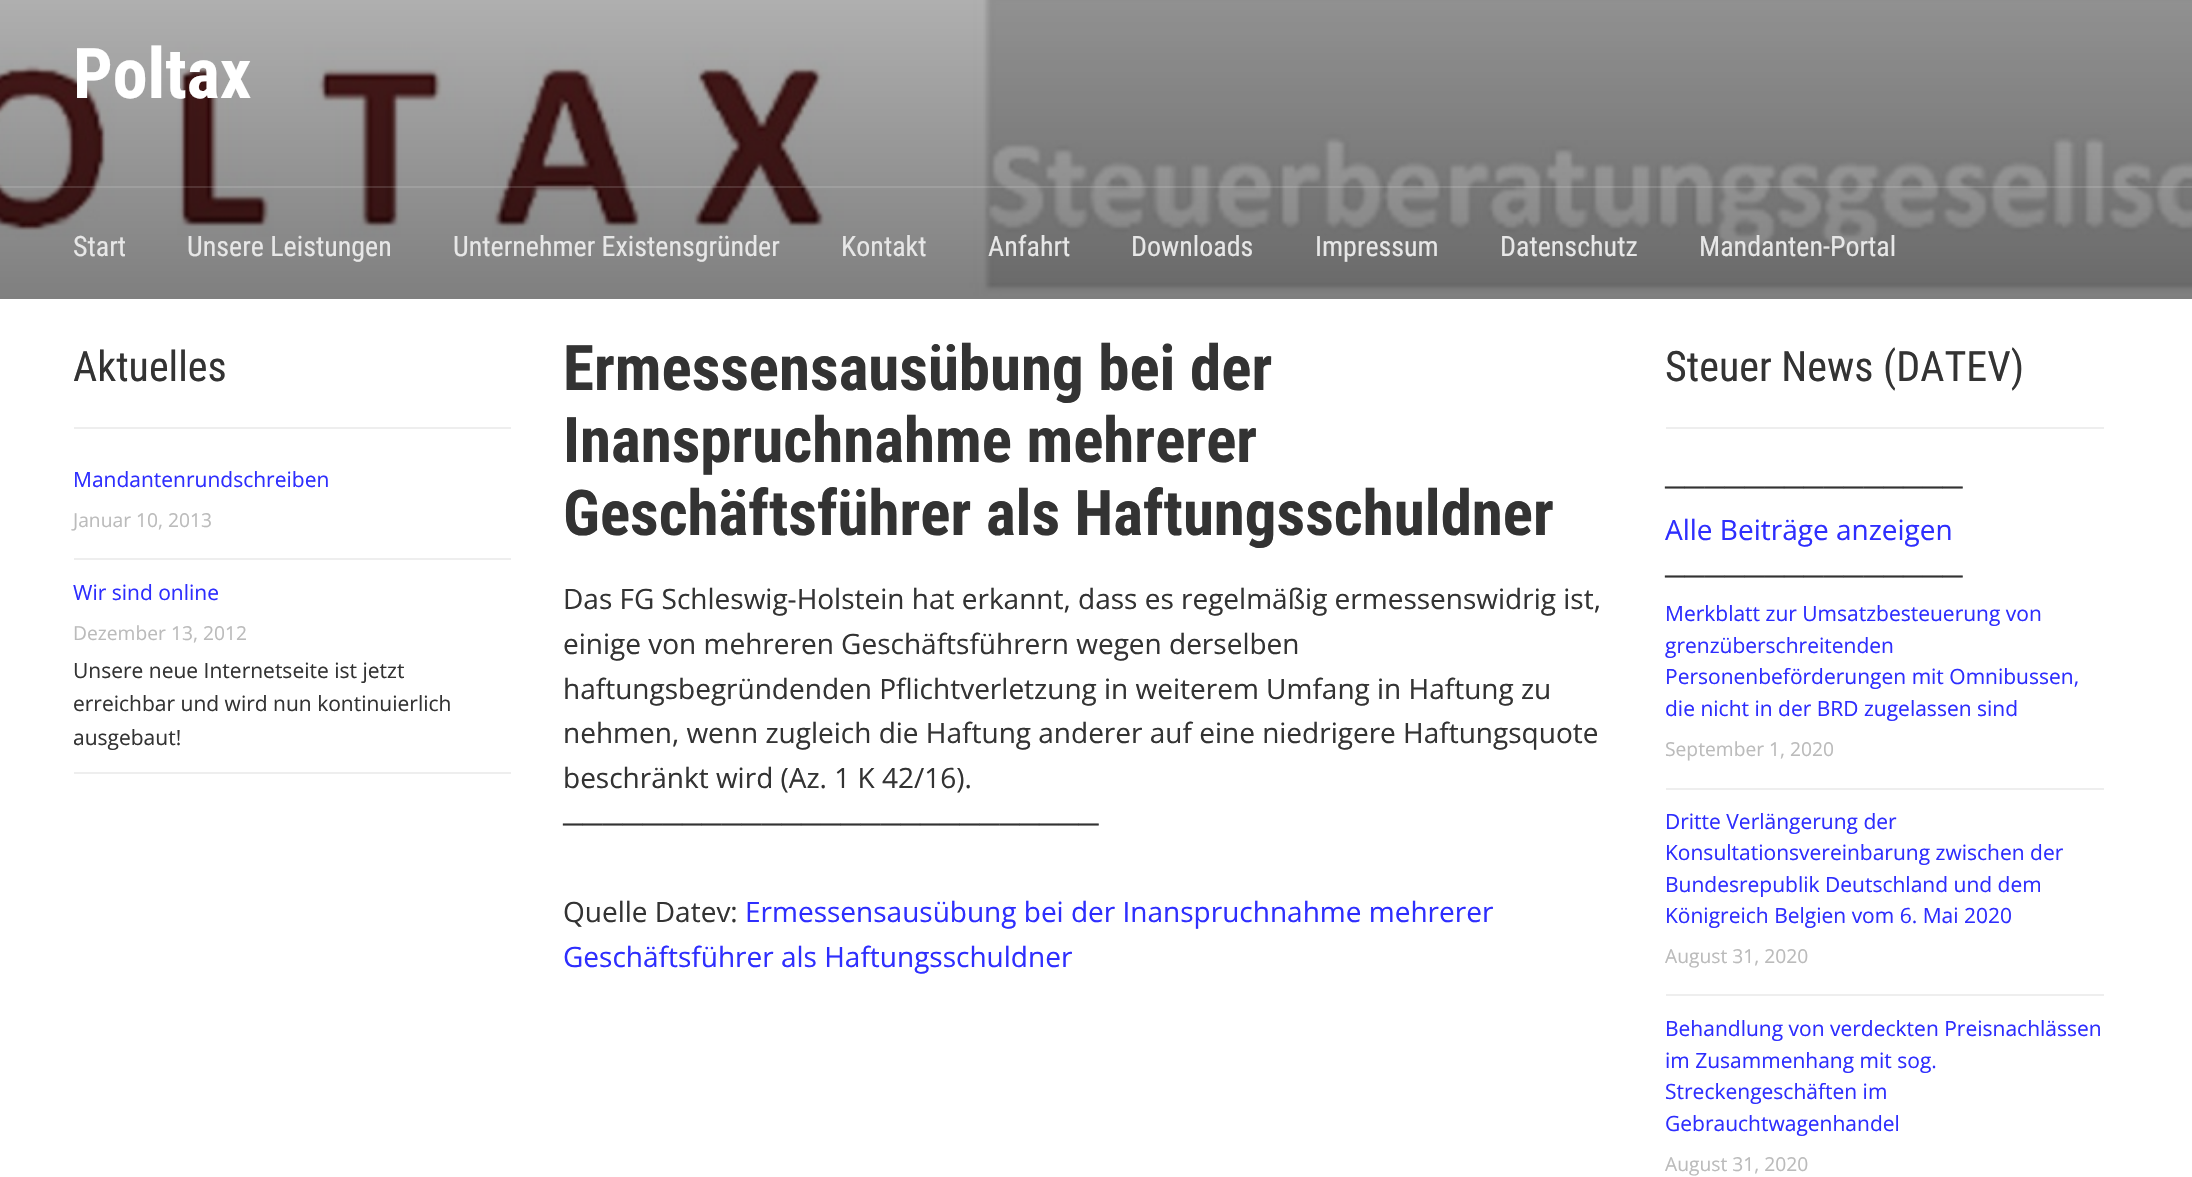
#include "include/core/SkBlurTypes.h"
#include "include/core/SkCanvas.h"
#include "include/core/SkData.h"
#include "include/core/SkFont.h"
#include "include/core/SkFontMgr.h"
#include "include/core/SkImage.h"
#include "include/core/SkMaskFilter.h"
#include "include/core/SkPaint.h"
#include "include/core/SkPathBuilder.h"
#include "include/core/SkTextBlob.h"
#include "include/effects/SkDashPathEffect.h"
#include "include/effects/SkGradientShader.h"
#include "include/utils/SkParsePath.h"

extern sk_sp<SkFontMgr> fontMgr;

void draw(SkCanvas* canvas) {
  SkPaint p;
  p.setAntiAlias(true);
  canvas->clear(SK_ColorWHITE);
  canvas->drawImageRect(SkImages::DeferredFromEncodedData(SkData::MakeFromFileName("images/1.png")), SkRect::MakeLTRB(0, 0, 2192, 299), SkSamplingOptions());
  {
    const SkColor colors[] = {SkColorSetARGB(77, 0, 0, 0), SkColorSetARGB(128, 0, 0, 0)};
    const float stops[] = {0, 1};
    const SkPoint ends[] = {{1096, -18}, {1096, 299}};
    p.setShader(SkGradientShader::MakeLinear(ends, colors, stops, 2, SkTileMode::kClamp));
    p.setAlpha(255);
  }
  canvas->drawRect(SkRect::MakeLTRB(0, 0, 2192, 299), p);
  p.setShader(nullptr);
  p.setColor(SkColorSetARGB(33, 255, 255, 255));
  canvas->drawRect(SkRect::MakeLTRB(0, 186, 2192, 188), p);
  p.setColor(SkColorSetRGB(238, 238, 238));
  canvas->drawRect(SkRect::MakeLTRB(74, 427, 511, 429), p);
  canvas->drawRect(SkRect::MakeLTRB(74, 558, 511, 560), p);
  canvas->drawRect(SkRect::MakeLTRB(74, 772, 511, 774), p);
  canvas->drawRect(SkRect::MakeLTRB(1666, 427, 2104, 429), p);
  canvas->drawRect(SkRect::MakeLTRB(1666, 788, 2104, 790), p);
  canvas->drawRect(SkRect::MakeLTRB(1666, 994, 2104, 996), p);
  SkFont font1(fontMgr->matchFamilyStyle("Roboto Condensed", SkFontStyle::Bold()), 70);
  font1.setSubpixel(true);
  p.setColor(SK_ColorWHITE);
  canvas->drawString("Poltax", 73, 98, font1, p);
  SkFont font2(fontMgr->matchFamilyStyle("Roboto Condensed", SkFontStyle::Normal()), 28);
  font2.setSubpixel(true);
  p.setColor(SkColorSetRGB(231, 231, 231));
  canvas->drawString("Start", 73, 256, font2, p);
  canvas->drawString("Unsere Leistungen", 187, 256, font2, p);
  canvas->drawString("Unternehmer Existensgründer", 453, 256, font2, p);
  canvas->drawString("Kontakt", 841, 256, font2, p);
  canvas->drawString("Anfahrt", 988, 256, font2, p);
  canvas->drawString("Downloads", 1131, 256, font2, p);
  canvas->drawString("Impressum", 1315, 256, font2, p);
  canvas->drawString("Datenschutz", 1500, 256, font2, p);
  canvas->drawString("Mandanten-Portal", 1699, 256, font2, p);
  SkFont font3(fontMgr->matchFamilyStyle("Roboto Condensed", SkFontStyle::Normal()), 42);
  font3.setSubpixel(true);
  p.setColor(SkColorSetRGB(51, 51, 51));
  canvas->drawString("Aktuelles", 73, 381, font3, p);
  SkFont font4(fontMgr->matchFamilyStyle("Open Sans", SkFontStyle::Normal()), 21);
  font4.setSubpixel(true);
  p.setColor(SkColorSetRGB(46, 46, 254));
  canvas->drawString("Mandantenrundschreiben", 73, 487, font4, p);
  SkFont font5(fontMgr->matchFamilyStyle("Open Sans", SkFontStyle::Normal()), 19.25f);
  font5.setSubpixel(true);
  p.setColor(SkColorSetRGB(187, 187, 187));
  canvas->drawString("Januar 10, 2013", 73, 527, font5, p);
  p.setColor(SkColorSetRGB(46, 46, 254));
  canvas->drawString("Wir sind online", 73, 600, font4, p);
  p.setColor(SkColorSetRGB(187, 187, 187));
  canvas->drawString("Dezember 13, 2012", 73, 640, font5, p);
  p.setColor(SkColorSetRGB(51, 51, 51));
  canvas->drawString("Unsere neue Internetseite ist jetzt", 73, 678, font4, p);
  canvas->drawString("erreichbar und wird nun kontinuierlich", 73, 711, font4, p);
  canvas->drawString("ausgebaut!", 73, 745, font4, p);
  SkFont font6(fontMgr->matchFamilyStyle("Roboto Condensed", SkFontStyle::Bold()), 63);
  font6.setSubpixel(true);
  canvas->drawString("Ermessensausübung bei der", 563, 390, font6, p);
  canvas->drawString("Inanspruchnahme mehrerer", 563, 462, font6, p);
  canvas->drawString("Geschäftsführer als Haftungsschuldner", 563, 535, font6, p);
  SkFont font7(fontMgr->matchFamilyStyle("Open Sans", SkFontStyle::Normal()), 28);
  font7.setSubpixel(true);
  canvas->drawString("Das FG Schleswig-Holstein hat erkannt, dass es regelmäßig ermessenswidrig ist,", 563, 609, font7, p);
  canvas->drawString("einige von mehreren Geschäftsführern wegen derselben", 563, 654, font7, p);
  canvas->drawString("haftungsbegründenden Pflichtverletzung in weiterem Umfang in Haftung zu", 563, 699, font7, p);
  canvas->drawString("nehmen, wenn zugleich die Haftung anderer auf eine niedrigere Haftungsquote", 563, 743, font7, p);
  canvas->drawString("beschränkt wird (Az. 1 K 42/16).", 563, 788, font7, p);
  SkFont font8(fontMgr->matchFamilyStyle("Liberation Sans", SkFontStyle::Normal()), 28);
  font8.setSubpixel(true);
  canvas->drawString("───────────────────────────", 563, 833, font8, p);
  canvas->drawString("Quelle Datev:", 563, 922, font7, p);
  p.setColor(SkColorSetRGB(46, 46, 254));
  canvas->drawString("Ermessensausübung bei der Inanspruchnahme mehrerer", 745, 922, font7, p);
  canvas->drawString("Geschäftsführer als Haftungsschuldner", 563, 967, font7, p);
  p.setColor(SkColorSetRGB(51, 51, 51));
  canvas->drawString("Steuer News (DATEV)", 1665, 381, font3, p);
  canvas->drawString("───────────────", 1665, 496, font8, p);
  p.setColor(SkColorSetRGB(46, 46, 254));
  canvas->drawString("Alle Beiträge anzeigen", 1665, 540, font7, p);
  p.setColor(SkColorSetRGB(51, 51, 51));
  canvas->drawString("───────────────", 1665, 585, font8, p);
  p.setColor(SkColorSetRGB(46, 46, 254));
  canvas->drawString("Merkblatt zur Umsatzbesteuerung von", 1665, 621, font4, p);
  canvas->drawString("grenzüberschreitenden", 1665, 653, font4, p);
  canvas->drawString("Personenbeförderungen mit Omnibussen,", 1665, 684, font4, p);
  canvas->drawString("die nicht in der BRD zugelassen sind", 1665, 716, font4, p);
  p.setColor(SkColorSetRGB(187, 187, 187));
  canvas->drawString("September 1, 2020", 1665, 756, font5, p);
  p.setColor(SkColorSetRGB(46, 46, 254));
  canvas->drawString("Dritte Verlängerung der", 1665, 829, font4, p);
  canvas->drawString("Konsultationsvereinbarung zwischen der", 1665, 860, font4, p);
  canvas->drawString("Bundesrepublik Deutschland und dem", 1665, 892, font4, p);
  canvas->drawString("Königreich Belgien vom 6. Mai 2020", 1665, 923, font4, p);
  p.setColor(SkColorSetRGB(187, 187, 187));
  canvas->drawString("August 31, 2020", 1665, 963, font5, p);
  p.setColor(SkColorSetRGB(46, 46, 254));
  canvas->drawString("Behandlung von verdeckten Preisnachlässen", 1665, 1036, font4, p);
  canvas->drawString("im Zusammenhang mit sog.", 1665, 1068, font4, p);
  canvas->drawString("Streckengeschäften im", 1665, 1099, font4, p);
  canvas->drawString("Gebrauchtwagenhandel", 1665, 1131, font4, p);
  p.setColor(SkColorSetRGB(187, 187, 187));
  canvas->drawString("August 31, 2020", 1665, 1171, font5, p);
}
